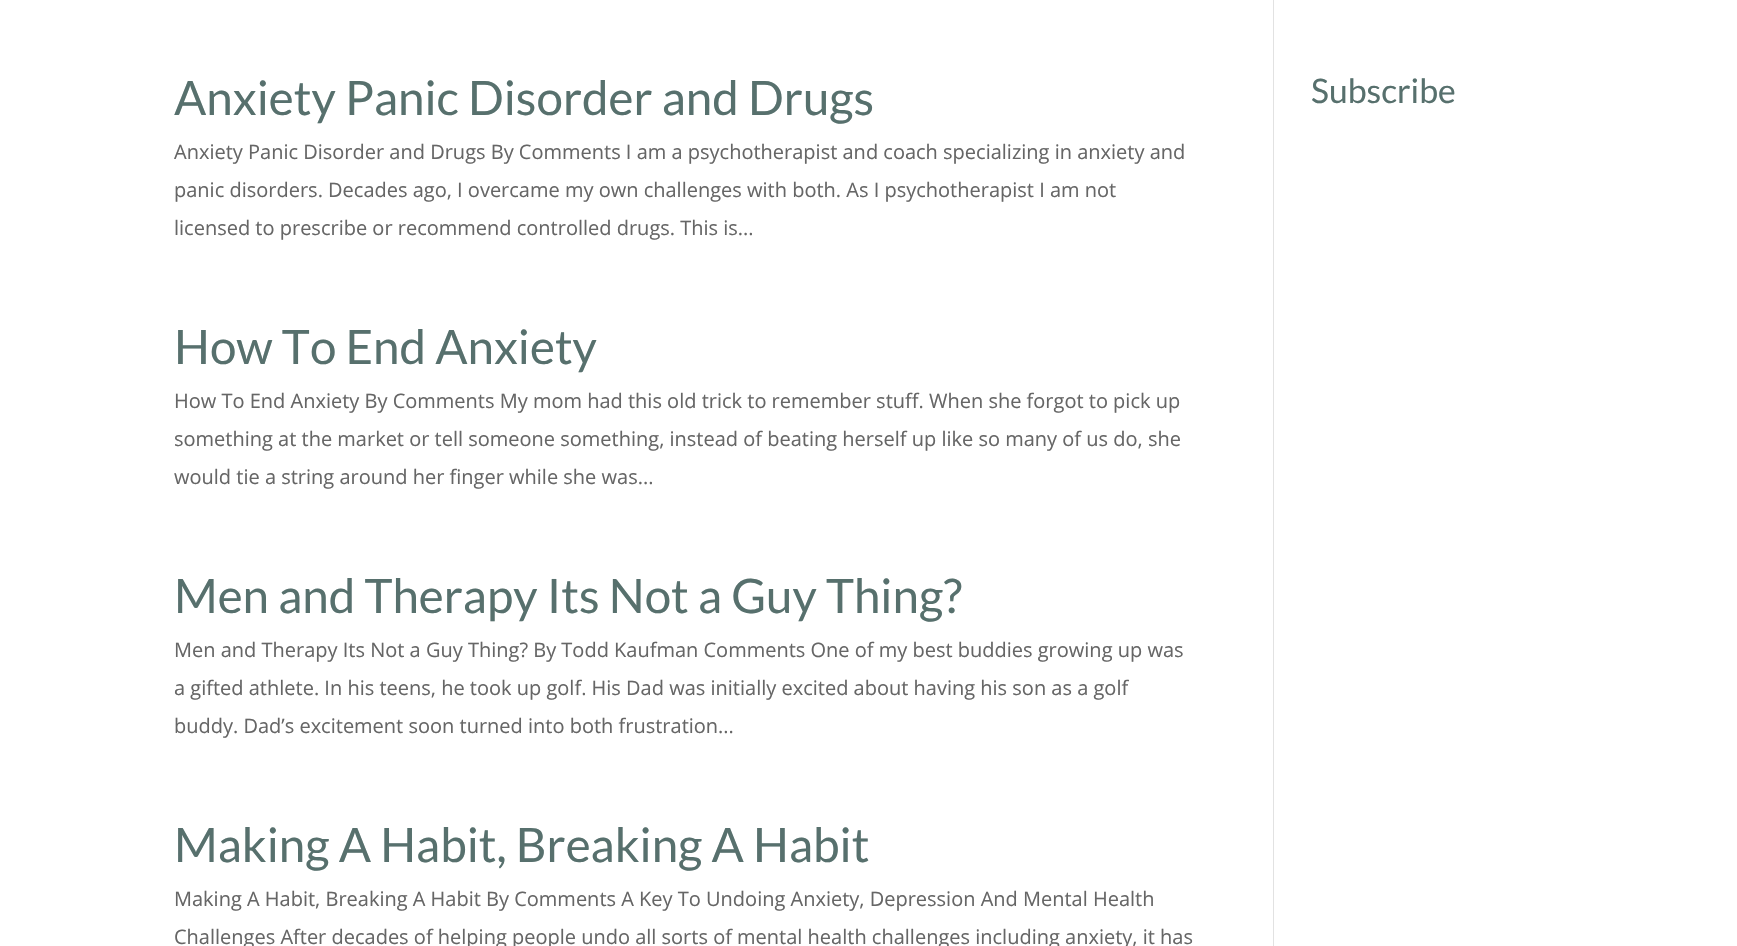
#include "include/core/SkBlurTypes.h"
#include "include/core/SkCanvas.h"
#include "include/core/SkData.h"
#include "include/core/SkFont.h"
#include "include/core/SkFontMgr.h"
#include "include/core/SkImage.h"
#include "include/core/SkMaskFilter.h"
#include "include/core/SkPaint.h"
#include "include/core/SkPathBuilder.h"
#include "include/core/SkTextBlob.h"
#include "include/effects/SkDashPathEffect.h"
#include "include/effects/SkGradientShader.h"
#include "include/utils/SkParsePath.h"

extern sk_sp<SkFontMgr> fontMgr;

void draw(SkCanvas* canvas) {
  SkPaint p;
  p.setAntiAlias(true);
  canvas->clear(SK_ColorWHITE);
  p.setColor(SkColorSetRGB(226, 226, 226));
  canvas->drawRect(SkRect::MakeLTRB(1273, 0, 1274, 946), p);
  SkFont font1(fontMgr->matchFamilyStyle("Lato", SkFontStyle::Normal()), 47.5f);
  font1.setSubpixel(true);
  p.setColor(SkColorSetRGB(87, 112, 109));
  canvas->drawString("Anxiety Panic Disorder and Drugs", 174, 115, font1, p);
  SkFont font2(fontMgr->matchFamilyStyle("Open Sans", SkFontStyle::Normal()), 20);
  font2.setSubpixel(true);
  p.setColor(SkColorSetRGB(102, 102, 102));
  canvas->drawString("Anxiety Panic Disorder and Drugs By Comments I am a psychotherapist and coach specializing in anxiety and", 174, 159, font2, p);
  canvas->drawString("panic disorders. Decades ago, I overcame my own challenges with both. As I psychotherapist I am not", 174, 197, font2, p);
  canvas->drawString("licensed to prescribe or recommend controlled drugs. This is...", 174, 235, font2, p);
  p.setColor(SkColorSetRGB(87, 112, 109));
  canvas->drawString("How To End Anxiety", 174, 364, font1, p);
  p.setColor(SkColorSetRGB(102, 102, 102));
  canvas->drawString("How To End Anxiety By Comments My mom had this old trick to remember stuff. When she forgot to pick up", 174, 408, font2, p);
  canvas->drawString("something at the market or tell someone something, instead of beating herself up like so many of us do, she", 174, 446, font2, p);
  canvas->drawString("would tie a string around her finger while she was...", 174, 484, font2, p);
  p.setColor(SkColorSetRGB(87, 112, 109));
  canvas->drawString("Men and Therapy Its Not a Guy Thing?", 174, 613, font1, p);
  p.setColor(SkColorSetRGB(102, 102, 102));
  canvas->drawString("Men and Therapy Its Not a Guy Thing? By Todd Kaufman Comments One of my best buddies growing up was", 174, 657, font2, p);
  canvas->drawString("a gifted athlete. In his teens, he took up golf. His Dad was initially excited about having his son as a golf", 174, 695, font2, p);
  canvas->drawString("buddy. Dad’s excitement soon turned into both frustration...", 174, 733, font2, p);
  p.setColor(SkColorSetRGB(87, 112, 109));
  canvas->drawString("Making A Habit, Breaking A Habit", 174, 862, font1, p);
  p.setColor(SkColorSetRGB(102, 102, 102));
  canvas->drawString("Making A Habit, Breaking A Habit By Comments A Key To Undoing Anxiety, Depression And Mental Health", 174, 906, font2, p);
  canvas->drawString("Challenges After decades of helping people undo all sorts of mental health challenges including anxiety, it has", 174, 944, font2, p);
  SkFont font3(fontMgr->matchFamilyStyle("Lato", SkFontStyle::Normal()), 33.75f);
  font3.setSubpixel(true);
  p.setColor(SkColorSetRGB(87, 112, 109));
  canvas->drawString("Subscribe", 1311, 103, font3, p);
}
